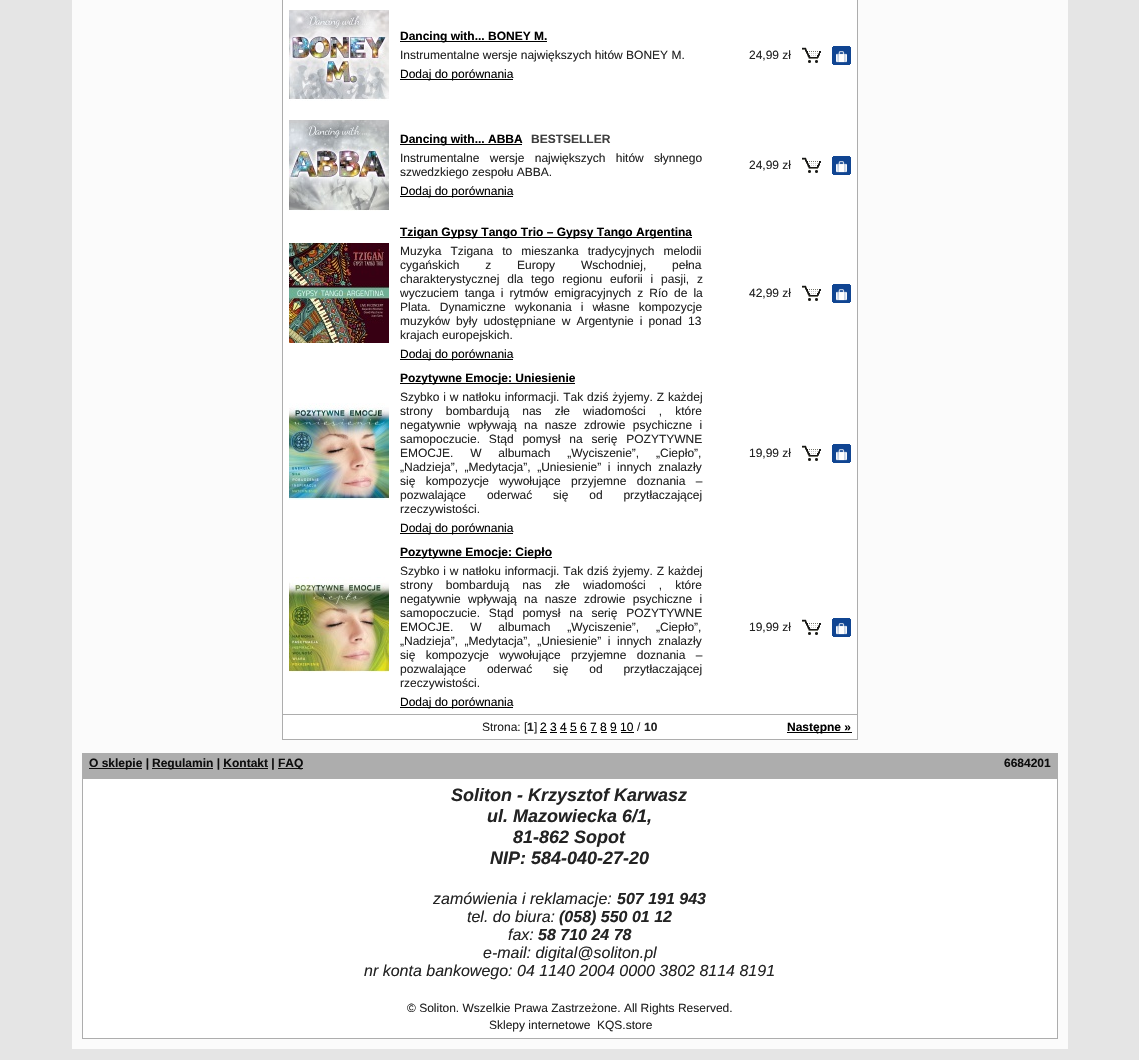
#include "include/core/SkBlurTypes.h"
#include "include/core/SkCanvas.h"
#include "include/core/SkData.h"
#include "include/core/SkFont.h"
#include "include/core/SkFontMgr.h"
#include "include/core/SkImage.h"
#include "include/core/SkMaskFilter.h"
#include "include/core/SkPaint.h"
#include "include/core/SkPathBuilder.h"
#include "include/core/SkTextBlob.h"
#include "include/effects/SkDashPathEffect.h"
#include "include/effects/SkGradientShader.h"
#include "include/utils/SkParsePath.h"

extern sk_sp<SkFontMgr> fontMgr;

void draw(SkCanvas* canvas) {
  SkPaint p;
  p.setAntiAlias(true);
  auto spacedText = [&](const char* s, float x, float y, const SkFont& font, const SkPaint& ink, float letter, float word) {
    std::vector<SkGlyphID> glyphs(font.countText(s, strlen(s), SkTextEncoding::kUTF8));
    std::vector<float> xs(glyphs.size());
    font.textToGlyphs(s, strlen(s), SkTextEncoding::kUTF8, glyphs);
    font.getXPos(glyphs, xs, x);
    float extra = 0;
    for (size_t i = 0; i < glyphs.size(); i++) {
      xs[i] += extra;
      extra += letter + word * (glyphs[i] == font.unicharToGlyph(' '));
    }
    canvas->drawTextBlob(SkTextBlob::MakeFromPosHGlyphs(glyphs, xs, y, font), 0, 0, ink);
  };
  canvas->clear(SkColorSetRGB(229, 229, 229));
  p.setColor(SkColorSetRGB(251, 251, 251));
  canvas->drawRect(SkRect::MakeLTRB(72, 0, 1068, 1049), p);
  p.setColor(SkColorSetRGB(173, 173, 173));
  canvas->drawRect(SkRect::MakeLTRB(857, 0, 858, 740), p);
  canvas->drawRect(SkRect::MakeLTRB(282, 714, 858, 715), p);
  canvas->drawRect(SkRect::MakeLTRB(282, 0, 283, 715), p);
  p.setColor(SK_ColorWHITE);
  canvas->drawRect(SkRect::MakeLTRB(283, 0, 857, 714), p);
  canvas->drawImageRect(SkImages::DeferredFromEncodedData(SkData::MakeFromFileName("images/1.png")), SkRect::MakeLTRB(289, 10, 389, 101), SkSamplingOptions());
  p.setColor(SK_ColorBLACK);
  canvas->drawRect(SkRect::MakeLTRB(400, 41, 547, 42), p);
  canvas->drawRect(SkRect::MakeLTRB(400, 79, 513, 80), p);
  canvas->drawImageRect(SkImages::DeferredFromEncodedData(SkData::MakeFromFileName("images/2.png")), SkRect::MakeLTRB(802, 47, 821, 63), SkSamplingOptions());
  canvas->drawImageRect(SkImages::DeferredFromEncodedData(SkData::MakeFromFileName("images/3.png")), SkRect::MakeLTRB(832, 46, 851, 65), SkSamplingOptions());
  canvas->drawImageRect(SkImages::DeferredFromEncodedData(SkData::MakeFromFileName("images/4.png")), SkRect::MakeLTRB(289, 120, 389, 211), SkSamplingOptions());
  canvas->drawRect(SkRect::MakeLTRB(400, 144, 522, 145), p);
  canvas->drawRect(SkRect::MakeLTRB(400, 196, 513, 197), p);
  canvas->drawImageRect(SkImages::DeferredFromEncodedData(SkData::MakeFromFileName("images/2.png")), SkRect::MakeLTRB(802, 157, 821, 173), SkSamplingOptions());
  canvas->drawImageRect(SkImages::DeferredFromEncodedData(SkData::MakeFromFileName("images/3.png")), SkRect::MakeLTRB(832, 156, 851, 175), SkSamplingOptions());
  canvas->drawImageRect(SkImages::DeferredFromEncodedData(SkData::MakeFromFileName("images/5.png")), SkRect::MakeLTRB(289, 243, 389, 343), SkSamplingOptions());
  canvas->drawRect(SkRect::MakeLTRB(400, 237, 692, 238), p);
  canvas->drawRect(SkRect::MakeLTRB(400, 359, 513, 360), p);
  canvas->drawImageRect(SkImages::DeferredFromEncodedData(SkData::MakeFromFileName("images/2.png")), SkRect::MakeLTRB(802, 285, 821, 301), SkSamplingOptions());
  canvas->drawImageRect(SkImages::DeferredFromEncodedData(SkData::MakeFromFileName("images/3.png")), SkRect::MakeLTRB(832, 284, 851, 303), SkSamplingOptions());
  canvas->drawImageRect(SkImages::DeferredFromEncodedData(SkData::MakeFromFileName("images/6.png")), SkRect::MakeLTRB(289, 403, 389, 500), SkSamplingOptions());
  canvas->drawRect(SkRect::MakeLTRB(400, 383, 575, 384), p);
  canvas->drawRect(SkRect::MakeLTRB(400, 533, 513, 534), p);
  canvas->drawImageRect(SkImages::DeferredFromEncodedData(SkData::MakeFromFileName("images/2.png")), SkRect::MakeLTRB(802, 445, 821, 461), SkSamplingOptions());
  canvas->drawImageRect(SkImages::DeferredFromEncodedData(SkData::MakeFromFileName("images/3.png")), SkRect::MakeLTRB(832, 444, 851, 463), SkSamplingOptions());
  canvas->drawImageRect(SkImages::DeferredFromEncodedData(SkData::MakeFromFileName("images/7.png")), SkRect::MakeLTRB(289, 577, 389, 673), SkSamplingOptions());
  canvas->drawRect(SkRect::MakeLTRB(400, 557, 552, 558), p);
  canvas->drawRect(SkRect::MakeLTRB(400, 707, 513, 708), p);
  canvas->drawImageRect(SkImages::DeferredFromEncodedData(SkData::MakeFromFileName("images/2.png")), SkRect::MakeLTRB(802, 619, 821, 635), SkSamplingOptions());
  canvas->drawImageRect(SkImages::DeferredFromEncodedData(SkData::MakeFromFileName("images/3.png")), SkRect::MakeLTRB(832, 618, 851, 637), SkSamplingOptions());
  p.setColor(SK_ColorWHITE);
  canvas->drawRect(SkRect::MakeLTRB(283, 715, 857, 739), p);
  p.setColor(SkColorSetRGB(173, 173, 173));
  canvas->drawRect(SkRect::MakeLTRB(282, 739, 858, 740), p);
  canvas->drawRect(SkRect::MakeLTRB(282, 715, 283, 740), p);
  p.setColor(SK_ColorBLACK);
  canvas->drawRect(SkRect::MakeLTRB(540, 732, 547, 733), p);
  canvas->drawRect(SkRect::MakeLTRB(550, 732, 557, 733), p);
  canvas->drawRect(SkRect::MakeLTRB(560, 732, 567, 733), p);
  canvas->drawRect(SkRect::MakeLTRB(570, 732, 577, 733), p);
  canvas->drawRect(SkRect::MakeLTRB(580, 732, 587, 733), p);
  canvas->drawRect(SkRect::MakeLTRB(591, 732, 597, 733), p);
  canvas->drawRect(SkRect::MakeLTRB(601, 732, 607, 733), p);
  canvas->drawRect(SkRect::MakeLTRB(611, 732, 617, 733), p);
  canvas->drawRect(SkRect::MakeLTRB(621, 732, 634, 733), p);
  canvas->drawRect(SkRect::MakeLTRB(787, 732, 852, 733), p);
  p.setColor(SkColorSetRGB(173, 173, 173));
  canvas->drawRect(SkRect::MakeLTRB(82, 753, 1058, 779), p);
  p.setColor(SkColorSetRGB(14, 14, 14));
  canvas->drawRect(SkRect::MakeLTRB(89, 768, 142, 769), p);
  canvas->drawRect(SkRect::MakeLTRB(152, 768, 213, 769), p);
  canvas->drawRect(SkRect::MakeLTRB(278, 768, 303, 769), p);
  canvas->drawRect(SkRect::MakeLTRB(223, 768, 268, 769), p);
  p.setColor(SK_ColorWHITE);
  canvas->drawRect(SkRect::MakeLTRB(83, 779, 1057, 1038), p);
  p.setColor(SkColorSetRGB(173, 173, 173));
  canvas->drawRect(SkRect::MakeLTRB(1057, 779, 1058, 1039), p);
  canvas->drawRect(SkRect::MakeLTRB(82, 1038, 1058, 1039), p);
  canvas->drawRect(SkRect::MakeLTRB(82, 779, 83, 1039), p);
  SkFont font1(fontMgr->matchFamilyStyle("Liberation Sans", SkFontStyle::Bold()), 12);
  font1.setSubpixel(true);
  p.setColor(SK_ColorBLACK);
  canvas->drawString("Dancing with... BONEY M.", 400, 40, font1, p);
  SkFont font2(fontMgr->matchFamilyStyle("Liberation Sans", SkFontStyle::Normal()), 12);
  font2.setSubpixel(true);
  p.setColor(SkColorSetRGB(35, 35, 35));
  canvas->drawString("Instrumentalne wersje największych hitów BONEY M.", 400, 59, font2, p);
  p.setColor(SK_ColorBLACK);
  canvas->drawString("Dodaj do porównania", 400, 78, font2, p);
  p.setColor(SkColorSetRGB(35, 35, 35));
  canvas->drawString("24,99 zł", 749, 59, font2, p);
  p.setColor(SK_ColorBLACK);
  canvas->drawString("Dancing with... ABBA", 400, 143, font1, p);
  p.setColor(SkColorSetRGB(63, 63, 63));
  canvas->drawString("BESTSELLER", 531, 143, font1, p);
  p.setColor(SkColorSetRGB(35, 35, 35));
  spacedText("Instrumentalne wersje największych hitów słynnego", 400, 162, font2, p, 0, 7);
  canvas->drawString("szwedzkiego zespołu ABBA.", 400, 176, font2, p);
  p.setColor(SK_ColorBLACK);
  canvas->drawString("Dodaj do porównania", 400, 195, font2, p);
  p.setColor(SkColorSetRGB(35, 35, 35));
  canvas->drawString("24,99 zł", 749, 169, font2, p);
  p.setColor(SK_ColorBLACK);
  canvas->drawString("Tzigan Gypsy Tango Trio – Gypsy Tango Argentina", 400, 236, font1, p);
  p.setColor(SkColorSetRGB(35, 35, 35));
  spacedText("Muzyka Tzigana to mieszanka tradycyjnych melodii", 400, 255, font2, p, 0, 5.75f);
  spacedText("cygańskich z Europy Wschodniej, pełna", 400, 269, font2, p, 0, 22.5f);
  spacedText("charakterystycznej dla tego regionu euforii i pasji, z", 400, 283, font2, p, 0, 4.5f);
  spacedText("wyczuciem tanga i rytmów emigracyjnych z Río de la", 400, 297, font2, p, 0, 2.75f);
  spacedText("Plata. Dynamiczne wykonania i własne kompozycje", 400, 311, font2, p, 0, 5.75f);
  spacedText("muzyków były udostępniane w Argentynie i ponad 13", 400, 325, font2, p, 0, 2.75f);
  canvas->drawString("krajach europejskich.", 400, 339, font2, p);
  p.setColor(SK_ColorBLACK);
  canvas->drawString("Dodaj do porównania", 400, 358, font2, p);
  p.setColor(SkColorSetRGB(35, 35, 35));
  canvas->drawString("42,99 zł", 749, 297, font2, p);
  p.setColor(SK_ColorBLACK);
  canvas->drawString("Pozytywne Emocje: Uniesienie", 400, 382, font1, p);
  p.setColor(SkColorSetRGB(35, 35, 35));
  spacedText("Szybko i w natłoku informacji. Tak dziś żyjemy. Z każdej", 400, 401, font2, p, 0, 0.5f);
  spacedText("strony bombardują nas złe wiadomości , które", 400, 415, font2, p, 0, 9.75f);
  spacedText("negatywnie wpływają na nasze zdrowie psychiczne i", 400, 429, font2, p, 0, 4);
  spacedText("samopoczucie. Stąd pomysł na serię POZYTYWNE", 400, 443, font2, p, 0, 5.5f);
  spacedText("EMOCJE. W albumach „Wyciszenie”, „Ciepło”,", 400, 457, font2, p, 0, 13.5f);
  spacedText("„Nadzieja”, „Medytacja”, „Uniesienie” i innych znalazły", 400, 471, font2, p, 0, 3.25f);
  spacedText("się kompozycje wywołujące przyjemne doznania –", 400, 485, font2, p, 0, 7);
  spacedText("pozwalające oderwać się od przytłaczającej", 400, 499, font2, p, 0, 17.5f);
  canvas->drawString("rzeczywistości.", 400, 513, font2, p);
  p.setColor(SK_ColorBLACK);
  canvas->drawString("Dodaj do porównania", 400, 532, font2, p);
  p.setColor(SkColorSetRGB(35, 35, 35));
  canvas->drawString("19,99 zł", 749, 457, font2, p);
  p.setColor(SK_ColorBLACK);
  canvas->drawString("Pozytywne Emocje: Ciepło", 400, 556, font1, p);
  p.setColor(SkColorSetRGB(35, 35, 35));
  spacedText("Szybko i w natłoku informacji. Tak dziś żyjemy. Z każdej", 400, 575, font2, p, 0, 0.5f);
  spacedText("strony bombardują nas złe wiadomości , które", 400, 589, font2, p, 0, 9.75f);
  spacedText("negatywnie wpływają na nasze zdrowie psychiczne i", 400, 603, font2, p, 0, 4);
  spacedText("samopoczucie. Stąd pomysł na serię POZYTYWNE", 400, 617, font2, p, 0, 5.5f);
  spacedText("EMOCJE. W albumach „Wyciszenie”, „Ciepło”,", 400, 631, font2, p, 0, 13.5f);
  spacedText("„Nadzieja”, „Medytacja”, „Uniesienie” i innych znalazły", 400, 645, font2, p, 0, 3.25f);
  spacedText("się kompozycje wywołujące przyjemne doznania –", 400, 659, font2, p, 0, 7);
  spacedText("pozwalające oderwać się od przytłaczającej", 400, 673, font2, p, 0, 17.5f);
  canvas->drawString("rzeczywistości.", 400, 687, font2, p);
  p.setColor(SK_ColorBLACK);
  canvas->drawString("Dodaj do porównania", 400, 706, font2, p);
  p.setColor(SkColorSetRGB(35, 35, 35));
  canvas->drawString("19,99 zł", 749, 631, font2, p);
  canvas->drawString("Strona: [", 482, 731, font2, p);
  canvas->drawString("1", 527, 731, font1, p);
  canvas->drawString("]", 534, 731, font2, p);
  p.setColor(SK_ColorBLACK);
  canvas->drawString("2 3 4 5 6 7 8 9 10", 540, 731, font2, p);
  p.setColor(SkColorSetRGB(35, 35, 35));
  canvas->drawString("/", 637, 731, font2, p);
  canvas->drawString("10", 644, 731, font1, p);
  p.setColor(SK_ColorBLACK);
  canvas->drawString("Następne »", 787, 731, font1, p);
  p.setColor(SkColorSetRGB(14, 14, 14));
  canvas->drawString("O sklepie |", 89, 767, font1, p);
  canvas->drawString("Regulamin | Kontakt |", 152, 767, font1, p);
  canvas->drawString("FAQ", 278, 767, font1, p);
  canvas->drawString("6684201", 1004, 767, font1, p);
  SkFont font3(fontMgr->matchFamilyStyle("Liberation Sans", SkFontStyle::BoldItalic()), 18);
  font3.setSubpixel(true);
  p.setColor(SkColorSetRGB(35, 35, 35));
  canvas->drawString("Soliton - Krzysztof Karwasz", 451, 801, font3, p);
  canvas->drawString("ul. Mazowiecka 6/1,", 487, 822, font3, p);
  canvas->drawString("81-862 Sopot", 513, 843, font3, p);
  canvas->drawString("NIP: 584-040-27-20", 490, 864, font3, p);
  SkFont font4(fontMgr->matchFamilyStyle("Liberation Sans", SkFontStyle::Italic()), 16);
  font4.setSubpixel(true);
  canvas->drawString("zamówienia i reklamacje:", 433, 904, font4, p);
  SkFont font5(fontMgr->matchFamilyStyle("Liberation Sans", SkFontStyle::BoldItalic()), 16);
  font5.setSubpixel(true);
  canvas->drawString("507 191 943", 617, 904, font5, p);
  canvas->drawString("tel. do biura:", 467, 922, font4, p);
  canvas->drawString("(058) 550 01 12", 559, 922, font5, p);
  canvas->drawString("fax:", 508, 940, font4, p);
  canvas->drawString("58 710 24 78", 538, 940, font5, p);
  canvas->drawString("e-mail: digital@soliton.pl", 483, 958, font4, p);
  canvas->drawString("nr konta bankowego: 04 1140 2004 0000 3802 8114 8191", 364, 976, font4, p);
  canvas->drawString("© Soliton. Wszelkie Prawa Zastrzeżone. All Rights Reserved.", 407, 1012, font2, p);
  canvas->drawString("Sklepy internetowe", 489, 1029, font2, p);
  canvas->drawString("KQS.store", 597, 1029, font2, p);
}
